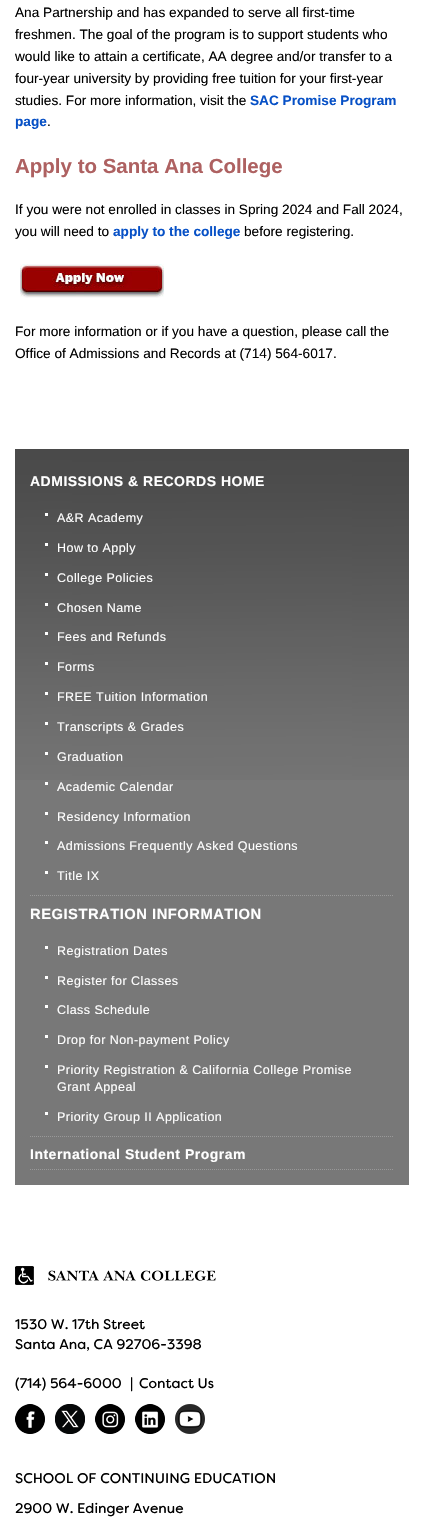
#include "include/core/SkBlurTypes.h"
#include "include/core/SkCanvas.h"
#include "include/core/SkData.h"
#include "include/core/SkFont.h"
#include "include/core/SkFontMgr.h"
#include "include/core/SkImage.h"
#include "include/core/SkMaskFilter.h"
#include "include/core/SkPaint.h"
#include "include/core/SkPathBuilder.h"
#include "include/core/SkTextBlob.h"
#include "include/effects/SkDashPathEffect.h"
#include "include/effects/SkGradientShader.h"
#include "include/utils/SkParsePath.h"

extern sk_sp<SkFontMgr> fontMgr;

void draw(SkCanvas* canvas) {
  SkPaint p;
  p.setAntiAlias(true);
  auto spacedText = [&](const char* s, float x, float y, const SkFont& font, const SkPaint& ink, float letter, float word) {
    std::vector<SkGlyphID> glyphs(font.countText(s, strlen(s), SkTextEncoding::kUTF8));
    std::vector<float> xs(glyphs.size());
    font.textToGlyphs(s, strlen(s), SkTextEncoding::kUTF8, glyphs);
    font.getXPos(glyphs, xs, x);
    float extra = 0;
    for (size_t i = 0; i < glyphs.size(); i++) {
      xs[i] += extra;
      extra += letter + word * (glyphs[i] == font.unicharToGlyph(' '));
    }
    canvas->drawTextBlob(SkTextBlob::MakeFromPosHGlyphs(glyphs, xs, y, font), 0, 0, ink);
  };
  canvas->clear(SK_ColorWHITE);
  canvas->drawImageRect(SkImages::DeferredFromEncodedData(SkData::MakeFromFileName("images/1.png")), SkRect::MakeLTRB(20, 264, 164, 298), SkSamplingOptions());
  p.setColor(SkColorSetRGB(120, 120, 120));
  canvas->drawRect(SkRect::MakeLTRB(15, 449, 409, 1185), p);
  canvas->drawImageRect(SkImages::DeferredFromEncodedData(SkData::MakeFromFileName("images/2.png")), SkRect::MakeLTRB(15, 449, 409, 780), SkSamplingOptions());
  p.setStyle(SkPaint::kStroke_Style);
  p.setStrokeWidth(1);
  p.setColor(SkColorSetRGB(153, 153, 153));
  p.setPathEffect(SkDashPathEffect::Make({{1, 1}}, 0));
  canvas->drawPath(SkPathBuilder().moveTo(30, 895.5f).lineTo(394, 895.5f).detach(), p);
  p.setPathEffect(nullptr);
  p.setStyle(SkPaint::kFill_Style);
  p.setColor(SK_ColorWHITE);
  canvas->drawRect(SkRect::MakeLTRB(45, 513, 48, 516), p);
  canvas->drawRect(SkRect::MakeLTRB(45, 543, 48, 546), p);
  canvas->drawRect(SkRect::MakeLTRB(45, 573, 48, 576), p);
  canvas->drawRect(SkRect::MakeLTRB(45, 603, 48, 606), p);
  canvas->drawRect(SkRect::MakeLTRB(45, 632, 48, 635), p);
  canvas->drawRect(SkRect::MakeLTRB(45, 662, 48, 665), p);
  canvas->drawRect(SkRect::MakeLTRB(45, 692, 48, 695), p);
  canvas->drawRect(SkRect::MakeLTRB(45, 722, 48, 725), p);
  canvas->drawRect(SkRect::MakeLTRB(45, 752, 48, 755), p);
  canvas->drawRect(SkRect::MakeLTRB(45, 782, 48, 785), p);
  canvas->drawRect(SkRect::MakeLTRB(45, 812, 48, 815), p);
  canvas->drawRect(SkRect::MakeLTRB(45, 841, 48, 844), p);
  canvas->drawRect(SkRect::MakeLTRB(45, 871, 48, 874), p);
  p.setStyle(SkPaint::kStroke_Style);
  p.setColor(SkColorSetRGB(153, 153, 153));
  p.setPathEffect(SkDashPathEffect::Make({{1, 1}}, 0));
  canvas->drawPath(SkPathBuilder().moveTo(30, 1136.5f).lineTo(394, 1136.5f).detach(), p);
  p.setPathEffect(nullptr);
  p.setStyle(SkPaint::kFill_Style);
  p.setColor(SK_ColorWHITE);
  canvas->drawRect(SkRect::MakeLTRB(45, 946, 48, 949), p);
  canvas->drawRect(SkRect::MakeLTRB(45, 976, 48, 979), p);
  canvas->drawRect(SkRect::MakeLTRB(45, 1005, 48, 1008), p);
  canvas->drawRect(SkRect::MakeLTRB(45, 1035, 48, 1038), p);
  canvas->drawRect(SkRect::MakeLTRB(45, 1065, 48, 1068), p);
  canvas->drawRect(SkRect::MakeLTRB(45, 1112, 48, 1115), p);
  p.setStyle(SkPaint::kStroke_Style);
  p.setColor(SkColorSetRGB(153, 153, 153));
  p.setPathEffect(SkDashPathEffect::Make({{1, 1}}, 0));
  canvas->drawPath(SkPathBuilder().moveTo(30, 1169.5f).lineTo(394, 1169.5f).detach(), p);
  p.setPathEffect(nullptr);
  canvas->drawImageRect(SkImages::DeferredFromEncodedData(SkData::MakeFromFileName("images/3.png")), SkRect::MakeLTRB(15, 1266, 34, 1285), SkSamplingOptions());
  canvas->drawImageRect(SkImages::DeferredFromEncodedData(SkData::MakeFromFileName("images/4.png")), SkRect::MakeLTRB(48, 1270, 216, 1281), SkSamplingOptions());
  canvas->drawImageRect(SkImages::DeferredFromEncodedData(SkData::MakeFromFileName("images/5.png")), SkRect::MakeLTRB(15, 1404, 45, 1434), SkSamplingOptions());
  canvas->drawImageRect(SkImages::DeferredFromEncodedData(SkData::MakeFromFileName("images/6.png")), SkRect::MakeLTRB(55, 1404, 85, 1434), SkSamplingOptions());
  canvas->drawImageRect(SkImages::DeferredFromEncodedData(SkData::MakeFromFileName("images/7.png")), SkRect::MakeLTRB(95, 1404, 125, 1434), SkSamplingOptions());
  canvas->drawImageRect(SkImages::DeferredFromEncodedData(SkData::MakeFromFileName("images/8.png")), SkRect::MakeLTRB(135, 1404, 165, 1434), SkSamplingOptions());
  canvas->drawImageRect(SkImages::DeferredFromEncodedData(SkData::MakeFromFileName("images/9.png")), SkRect::MakeLTRB(175, 1404, 205, 1434), SkSamplingOptions());
  SkFont font1(fontMgr->matchFamilyStyle("Liberation Sans", SkFontStyle::Normal()), 13.65f);
  font1.setSubpixel(true);
  p.setStyle(SkPaint::kFill_Style);
  p.setColor(SK_ColorBLACK);
  canvas->drawString("Ana Partnership and has expanded to serve all first-time", 15, 17, font1, p);
  canvas->drawString("freshmen. The goal of the program is to support students who", 15, 39, font1, p);
  canvas->drawString("would like to attain a certificate, AA degree and/or transfer to a", 15, 61, font1, p);
  canvas->drawString("four-year university by providing free tuition for your first-year", 15, 83, font1, p);
  canvas->drawString("studies. For more information, visit the", 15, 105, font1, p);
  SkFont font2(fontMgr->matchFamilyStyle("Liberation Sans", SkFontStyle::Bold()), 13.65f);
  font2.setSubpixel(true);
  p.setColor(SkColorSetRGB(6, 80, 198));
  canvas->drawString("SAC Promise Program", 250, 105, font2, p);
  canvas->drawString("page", 15, 126, font2, p);
  p.setColor(SK_ColorBLACK);
  canvas->drawString(".", 47, 126, font1, p);
  SkFont font3(fontMgr->matchFamilyStyle("Liberation Sans", SkFontStyle::Bold()), 20.5f);
  font3.setSubpixel(true);
  p.setColor(SkColorSetRGB(174, 97, 97));
  canvas->drawString("Apply to Santa Ana College", 15, 173, font3, p);
  p.setColor(SK_ColorBLACK);
  canvas->drawString("If you were not enrolled in classes in Spring 2024 and Fall 2024,", 15, 214, font1, p);
  canvas->drawString("you will need to", 15, 236, font1, p);
  p.setColor(SkColorSetRGB(6, 80, 198));
  canvas->drawString("apply to the college", 113, 236, font2, p);
  p.setColor(SK_ColorBLACK);
  canvas->drawString("before registering.", 244, 236, font1, p);
  canvas->drawString("For more information or if you have a question, please call the", 15, 336, font1, p);
  canvas->drawString("Office of Admissions and Records at (714) 564-6017.", 15, 358, font1, p);
  SkFont font4(fontMgr->matchFamilyStyle("Liberation Sans", SkFontStyle::Bold()), 14);
  font4.setSubpixel(true);
  p.setColor(SK_ColorWHITE);
  spacedText("ADMISSIONS & RECORDS HOME", 30, 486, font4, p, 0.5f, 0);
  SkFont font5(fontMgr->matchFamilyStyle("Liberation Sans", SkFontStyle::Normal()), 12.5f);
  font5.setSubpixel(true);
  spacedText("A&R Academy", 57, 522, font5, p, 0.45f, 0);
  spacedText("How to Apply", 57, 552, font5, p, 0.45f, 0);
  spacedText("College Policies", 57, 582, font5, p, 0.45f, 0);
  spacedText("Chosen Name", 57, 612, font5, p, 0.45f, 0);
  spacedText("Fees and Refunds", 57, 641, font5, p, 0.45f, 0);
  spacedText("Forms", 57, 671, font5, p, 0.45f, 0);
  spacedText("FREE Tuition Information", 57, 701, font5, p, 0.45f, 0);
  spacedText("Transcripts & Grades", 57, 731, font5, p, 0.45f, 0);
  spacedText("Graduation", 57, 761, font5, p, 0.45f, 0);
  spacedText("Academic Calendar", 57, 791, font5, p, 0.45f, 0);
  spacedText("Residency Information", 57, 821, font5, p, 0.45f, 0);
  spacedText("Admissions Frequently Asked Questions", 57, 850, font5, p, 0.45f, 0);
  spacedText("Title IX", 57, 880, font5, p, 0.45f, 0);
  SkFont font6(fontMgr->matchFamilyStyle("Liberation Sans", SkFontStyle::Bold()), 14.75f);
  font6.setSubpixel(true);
  spacedText("REGISTRATION INFORMATION", 30, 919, font6, p, 0.5f, 0);
  spacedText("Registration Dates", 57, 955, font5, p, 0.45f, 0);
  spacedText("Register for Classes", 57, 985, font5, p, 0.45f, 0);
  spacedText("Class Schedule", 57, 1014, font5, p, 0.45f, 0);
  spacedText("Drop for Non-payment Policy", 57, 1044, font5, p, 0.45f, 0);
  spacedText("Priority Registration & California College Promise", 57, 1074, font5, p, 0.45f, 0);
  spacedText("Grant Appeal", 57, 1091, font5, p, 0.45f, 0);
  spacedText("Priority Group II Application", 57, 1121, font5, p, 0.45f, 0);
  spacedText("International Student Program", 30, 1159, font4, p, 0.5f, 0);
  SkFont font7(fontMgr->matchFamilyStyle("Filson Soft", SkFontStyle::Normal()), 14);
  font7.setSubpixel(true);
  p.setColor(SK_ColorBLACK);
  canvas->drawString("1530 W. 17th Street", 15, 1329, font7, p);
  canvas->drawString("Santa Ana, CA 92706-3398", 15, 1349, font7, p);
  canvas->drawString("(714) 564-6000", 15, 1388, font7, p);
  canvas->drawString("|", 130, 1388, font7, p);
  canvas->drawString("Contact Us", 139, 1388, font7, p);
  canvas->drawString("SCHOOL OF CONTINUING EDUCATION", 15, 1483, font7, p);
  canvas->drawString("2900 W. Edinger Avenue", 15, 1513, font7, p);
}
